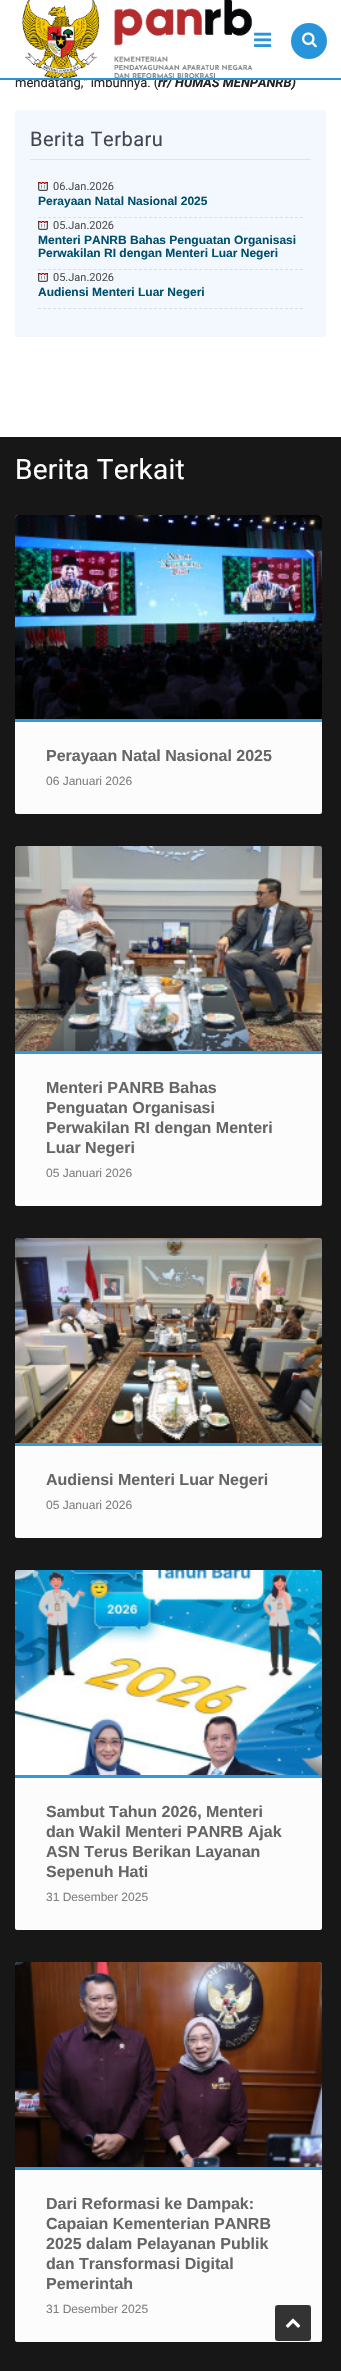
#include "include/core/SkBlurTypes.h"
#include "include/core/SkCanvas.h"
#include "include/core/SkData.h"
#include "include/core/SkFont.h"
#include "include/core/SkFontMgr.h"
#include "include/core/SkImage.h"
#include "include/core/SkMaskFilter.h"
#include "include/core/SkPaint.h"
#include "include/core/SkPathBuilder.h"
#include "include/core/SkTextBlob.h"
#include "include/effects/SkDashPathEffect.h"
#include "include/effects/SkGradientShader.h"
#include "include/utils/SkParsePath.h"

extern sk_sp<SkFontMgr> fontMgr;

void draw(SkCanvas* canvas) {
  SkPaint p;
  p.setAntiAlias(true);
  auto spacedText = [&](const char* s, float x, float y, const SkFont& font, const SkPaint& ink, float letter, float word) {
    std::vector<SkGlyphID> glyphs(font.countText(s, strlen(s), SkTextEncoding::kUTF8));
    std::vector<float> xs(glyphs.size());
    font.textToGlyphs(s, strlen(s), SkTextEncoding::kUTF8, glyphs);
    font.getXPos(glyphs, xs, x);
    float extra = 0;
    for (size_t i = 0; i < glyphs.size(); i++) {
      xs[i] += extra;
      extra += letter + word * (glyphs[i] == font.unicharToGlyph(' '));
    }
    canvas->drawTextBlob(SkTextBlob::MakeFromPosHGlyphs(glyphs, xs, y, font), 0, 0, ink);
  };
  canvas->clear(SK_ColorWHITE);
  canvas->drawImageRect(SkImages::DeferredFromEncodedData(SkData::MakeFromFileName("images/2.png")), SkRect::MakeLTRB(254, 32, 272, 47), SkSamplingOptions());
  p.setColor(SkColorSetRGB(40, 148, 217));
  canvas->drawCircle(309, 41, 18, p);
  canvas->drawImageRect(SkImages::DeferredFromEncodedData(SkData::MakeFromFileName("images/3.png")), SkRect::MakeLTRB(302, 32, 317, 48), SkSamplingOptions());
  p.setColor(SkColorSetRGB(243, 248, 254));
  canvas->drawRoundRect(SkRect::MakeLTRB(15, 110, 326, 337), 3, 3, p);
  p.setColor(SkColorSetRGB(224, 228, 232));
  canvas->drawRect(SkRect::MakeLTRB(30, 159, 311, 160), p);
  p.setStyle(SkPaint::kStroke_Style);
  p.setStrokeWidth(1);
  p.setColor(SkColorSetRGB(221, 221, 221));
  p.setPathEffect(SkDashPathEffect::Make({{3, 2.04f}}, 0));
  canvas->drawPath(SkPathBuilder().moveTo(38, 217.5f).lineTo(303, 217.5f).detach(), p);
  p.setPathEffect(nullptr);
  canvas->drawImageRect(SkImages::DeferredFromEncodedData(SkData::MakeFromFileName("images/4.png")), SkRect::MakeLTRB(38, 182, 48, 191), SkSamplingOptions());
  p.setPathEffect(SkDashPathEffect::Make({{3, 2.04f}}, 0));
  canvas->drawPath(SkPathBuilder().moveTo(38, 269.5f).lineTo(303, 269.5f).detach(), p);
  p.setPathEffect(nullptr);
  canvas->drawImageRect(SkImages::DeferredFromEncodedData(SkData::MakeFromFileName("images/4.png")), SkRect::MakeLTRB(38, 221, 48, 230), SkSamplingOptions());
  p.setPathEffect(SkDashPathEffect::Make({{3, 2.04f}}, 0));
  canvas->drawPath(SkPathBuilder().moveTo(38, 308.5f).lineTo(303, 308.5f).detach(), p);
  p.setPathEffect(nullptr);
  canvas->drawImageRect(SkImages::DeferredFromEncodedData(SkData::MakeFromFileName("images/4.png")), SkRect::MakeLTRB(38, 273, 48, 282), SkSamplingOptions());
  p.setStyle(SkPaint::kFill_Style);
  p.setColor(SkColorSetRGB(23, 23, 23));
  canvas->drawRect(SkRect::MakeLTRB(0, 437, 341, 2371), p);
  p.setColor(SkColorSetRGB(252, 252, 252));
  canvas->drawPath(SkPathBuilder().moveTo(18, 515).lineTo(319, 515).cubicTo(320.5f, 515, 322, 516.5f, 322, 518).lineTo(322, 812).cubicTo(322, 813, 321, 814, 320, 814).lineTo(17, 814).cubicTo(16, 814, 15, 813, 15, 812).lineTo(15, 518).cubicTo(15, 516.5f, 16.5f, 515, 18, 515).close().detach(), p);
  p.setColor(SkColorSetRGB(53, 152, 220));
  canvas->drawRect(SkRect::MakeLTRB(15, 719, 322, 722), p);
  canvas->drawImageRect(SkImages::DeferredFromEncodedData(SkData::MakeFromFileName("images/5.png")), SkRect::MakeLTRB(15, 515, 322, 719), SkSamplingOptions());
  p.setColor(SkColorSetRGB(252, 252, 252));
  canvas->drawPath(SkPathBuilder().moveTo(18, 846).lineTo(319, 846).cubicTo(320.5f, 846, 322, 847.5f, 322, 849).lineTo(322, 1204).cubicTo(322, 1205, 321, 1206, 320, 1206).lineTo(17, 1206).cubicTo(16, 1206, 15, 1205, 15, 1204).lineTo(15, 849).cubicTo(15, 847.5f, 16.5f, 846, 18, 846).close().detach(), p);
  p.setColor(SkColorSetRGB(53, 152, 220));
  canvas->drawRect(SkRect::MakeLTRB(15, 1051, 322, 1054), p);
  canvas->drawImageRect(SkImages::DeferredFromEncodedData(SkData::MakeFromFileName("images/6.png")), SkRect::MakeLTRB(15, 846, 322, 1051), SkSamplingOptions());
  p.setColor(SkColorSetRGB(252, 252, 252));
  canvas->drawPath(SkPathBuilder().moveTo(18, 1238).lineTo(319, 1238).cubicTo(320.5f, 1238, 322, 1239.5f, 322, 1241).lineTo(322, 1536).cubicTo(322, 1537, 321, 1538, 320, 1538).lineTo(17, 1538).cubicTo(16, 1538, 15, 1537, 15, 1536).lineTo(15, 1241).cubicTo(15, 1239.5f, 16.5f, 1238, 18, 1238).close().detach(), p);
  p.setColor(SkColorSetRGB(53, 152, 220));
  canvas->drawRect(SkRect::MakeLTRB(15, 1443, 322, 1446), p);
  canvas->drawImageRect(SkImages::DeferredFromEncodedData(SkData::MakeFromFileName("images/7.png")), SkRect::MakeLTRB(15, 1238, 322, 1443), SkSamplingOptions());
  p.setColor(SkColorSetRGB(252, 252, 252));
  canvas->drawPath(SkPathBuilder().moveTo(18, 1570).lineTo(319, 1570).cubicTo(320.5f, 1570, 322, 1571.5f, 322, 1573).lineTo(322, 1928).cubicTo(322, 1929, 321, 1930, 320, 1930).lineTo(17, 1930).cubicTo(16, 1930, 15, 1929, 15, 1928).lineTo(15, 1573).cubicTo(15, 1571.5f, 16.5f, 1570, 18, 1570).close().detach(), p);
  p.setColor(SkColorSetRGB(53, 152, 220));
  canvas->drawRect(SkRect::MakeLTRB(15, 1775, 322, 1778), p);
  canvas->drawImageRect(SkImages::DeferredFromEncodedData(SkData::MakeFromFileName("images/8.png")), SkRect::MakeLTRB(15, 1570, 322, 1775), SkSamplingOptions());
  p.setColor(SkColorSetRGB(252, 252, 252));
  canvas->drawPath(SkPathBuilder().moveTo(18, 1962).lineTo(319, 1962).cubicTo(320.5f, 1962, 322, 1963.5f, 322, 1965).lineTo(322, 2340).cubicTo(322, 2341, 321, 2342, 320, 2342).lineTo(17, 2342).cubicTo(16, 2342, 15, 2341, 15, 2340).lineTo(15, 1965).cubicTo(15, 1963.5f, 16.5f, 1962, 18, 1962).close().detach(), p);
  p.setColor(SkColorSetRGB(53, 152, 220));
  canvas->drawRect(SkRect::MakeLTRB(15, 2167, 322, 2170), p);
  canvas->drawImageRect(SkImages::DeferredFromEncodedData(SkData::MakeFromFileName("images/9.png")), SkRect::MakeLTRB(15, 1962, 322, 2167), SkSamplingOptions());
  p.setColor(SkColorSetRGB(51, 51, 51));
  canvas->drawRoundRect(SkRect::MakeLTRB(275, 2305, 311, 2341), 3, 3, p);
  canvas->drawImageRect(SkImages::DeferredFromEncodedData(SkData::MakeFromFileName("images/10.png")), SkRect::MakeLTRB(285, 2318, 301, 2328), SkSamplingOptions());
  SkFont font1(fontMgr->matchFamilyStyle("Roboto", SkFontStyle::Normal()), 13);
  font1.setSubpixel(true);
  p.setColor(SkColorSetRGB(37, 37, 37));
  canvas->drawString("mendatang,\" imbuhnya. (", 15, 87, font1, p);
  SkFont font2(fontMgr->matchFamilyStyle("Roboto", SkFontStyle::BoldItalic()), 13);
  font2.setSubpixel(true);
  canvas->drawString("rr/ HUMAS MENPANRB)", 158, 87, font2, p);
  p.setColor(SK_ColorWHITE);
  canvas->drawRect(SkRect::MakeLTRB(45, 76, 295, 78), p);
  canvas->drawImageRect(SkImages::DeferredFromEncodedData(SkData::MakeFromFileName("images/1.png")), SkRect::MakeLTRB(22, 0, 253, 78), SkSamplingOptions());
  p.setColor(SkColorSetRGB(40, 148, 217));
  canvas->drawRect(SkRect::MakeLTRB(0, 78, 341, 80), p);
  SkFont font3(fontMgr->matchFamilyStyle("Roboto", SkFontStyle::Normal()), 20);
  font3.setSubpixel(true);
  p.setColor(SkColorSetRGB(64, 71, 82));
  spacedText("Berita Terbaru", 30, 146, font3, p, 0.5f, 0);
  SkFont font4(fontMgr->matchFamilyStyle("Roboto", SkFontStyle::Normal()), 11);
  font4.setSubpixel(true);
  p.setColor(SkColorSetRGB(82, 82, 82));
  canvas->drawString("06.Jan.2026", 53, 190, font4, p);
  SkFont font5(fontMgr->matchFamilyStyle("Liberation Sans", SkFontStyle::Bold()), 12);
  font5.setSubpixel(true);
  p.setColor(SkColorSetRGB(0, 79, 111));
  canvas->drawString("Perayaan Natal Nasional 2025", 38, 205, font5, p);
  p.setColor(SkColorSetRGB(82, 82, 82));
  canvas->drawString("05.Jan.2026", 53, 229, font4, p);
  p.setColor(SkColorSetRGB(0, 79, 111));
  canvas->drawString("Menteri PANRB Bahas Penguatan Organisasi", 38, 244, font5, p);
  canvas->drawString("Perwakilan RI dengan Menteri Luar Negeri", 38, 257, font5, p);
  p.setColor(SkColorSetRGB(82, 82, 82));
  canvas->drawString("05.Jan.2026", 53, 281, font4, p);
  p.setColor(SkColorSetRGB(0, 79, 111));
  canvas->drawString("Audiensi Menteri Luar Negeri", 38, 296, font5, p);
  SkFont font6(fontMgr->matchFamilyStyle("Roboto", SkFontStyle::Normal()), 28);
  font6.setSubpixel(true);
  p.setColor(SK_ColorWHITE);
  spacedText("Berita Terkait", 15, 479, font6, p, 0.25f, 0);
  SkFont font7(fontMgr->matchFamilyStyle("Liberation Sans", SkFontStyle::Bold()), 16);
  font7.setSubpixel(true);
  p.setColor(SkColorSetRGB(102, 102, 102));
  canvas->drawString("Perayaan Natal Nasional 2025", 46, 761, font7, p);
  SkFont font8(fontMgr->matchFamilyStyle("Liberation Sans", SkFontStyle::Normal()), 12);
  font8.setSubpixel(true);
  p.setColor(SkColorSetRGB(128, 128, 128));
  canvas->drawString("06 Januari 2026", 46, 785, font8, p);
  p.setColor(SkColorSetRGB(102, 102, 102));
  canvas->drawString("Menteri PANRB Bahas", 46, 1093, font7, p);
  canvas->drawString("Penguatan Organisasi", 46, 1113, font7, p);
  canvas->drawString("Perwakilan RI dengan Menteri", 46, 1133, font7, p);
  canvas->drawString("Luar Negeri", 46, 1153, font7, p);
  p.setColor(SkColorSetRGB(128, 128, 128));
  canvas->drawString("05 Januari 2026", 46, 1177, font8, p);
  p.setColor(SkColorSetRGB(102, 102, 102));
  canvas->drawString("Audiensi Menteri Luar Negeri", 46, 1485, font7, p);
  p.setColor(SkColorSetRGB(128, 128, 128));
  canvas->drawString("05 Januari 2026", 46, 1509, font8, p);
  p.setColor(SkColorSetRGB(102, 102, 102));
  canvas->drawString("Sambut Tahun 2026, Menteri", 46, 1817, font7, p);
  canvas->drawString("dan Wakil Menteri PANRB Ajak", 46, 1837, font7, p);
  canvas->drawString("ASN Terus Berikan Layanan", 46, 1857, font7, p);
  canvas->drawString("Sepenuh Hati", 46, 1877, font7, p);
  p.setColor(SkColorSetRGB(128, 128, 128));
  canvas->drawString("31 Desember 2025", 46, 1901, font8, p);
  p.setColor(SkColorSetRGB(102, 102, 102));
  canvas->drawString("Dari Reformasi ke Dampak:", 46, 2209, font7, p);
  canvas->drawString("Capaian Kementerian PANRB", 46, 2229, font7, p);
  canvas->drawString("2025 dalam Pelayanan Publik", 46, 2249, font7, p);
  canvas->drawString("dan Transformasi Digital", 46, 2269, font7, p);
  canvas->drawString("Pemerintah", 46, 2289, font7, p);
  p.setColor(SkColorSetRGB(128, 128, 128));
  canvas->drawString("31 Desember 2025", 46, 2313, font8, p);
}
